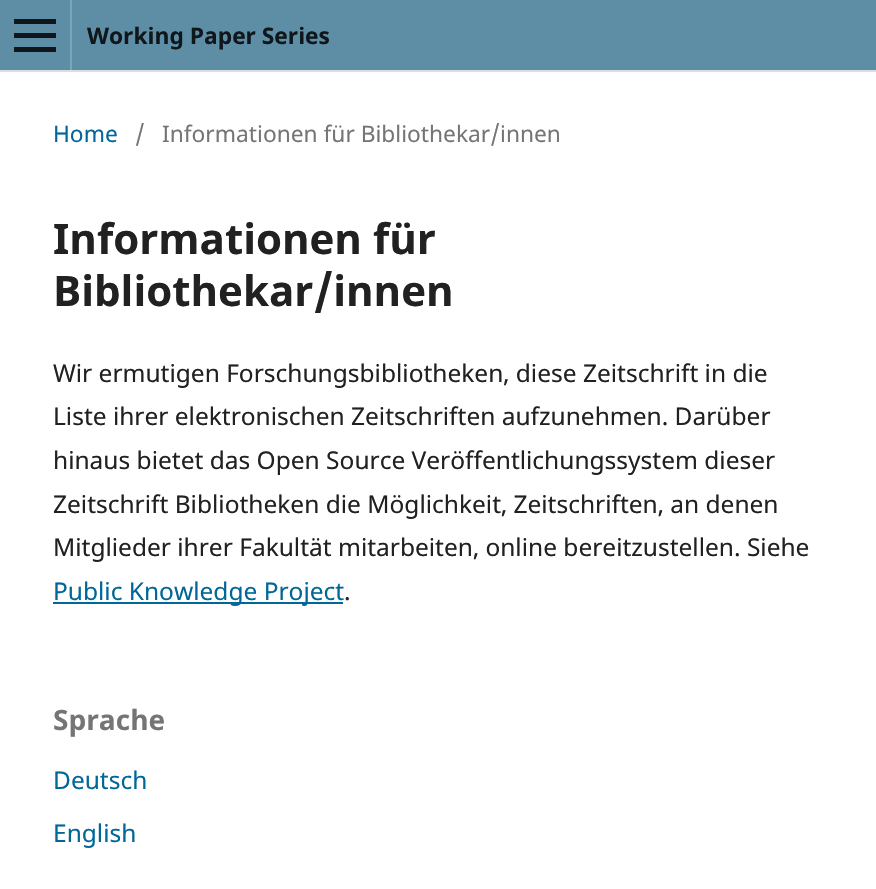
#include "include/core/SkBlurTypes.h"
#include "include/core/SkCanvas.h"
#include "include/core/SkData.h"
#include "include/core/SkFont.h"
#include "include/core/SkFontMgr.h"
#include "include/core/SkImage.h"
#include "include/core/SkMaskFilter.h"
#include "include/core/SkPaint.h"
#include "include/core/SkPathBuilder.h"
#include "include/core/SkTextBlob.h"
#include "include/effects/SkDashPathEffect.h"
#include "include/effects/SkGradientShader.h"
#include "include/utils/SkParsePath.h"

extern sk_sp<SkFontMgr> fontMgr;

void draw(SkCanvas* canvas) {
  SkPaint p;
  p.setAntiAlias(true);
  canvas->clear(SK_ColorWHITE);
  p.setColor(SkColorSetRGB(93, 142, 166));
  canvas->drawRect(SkRect::MakeLTRB(0, 0, 876, 70), p);
  p.setColor(SkColorSetRGB(221, 221, 221));
  canvas->drawRect(SkRect::MakeLTRB(0, 70, 876, 72), p);
  p.setColor(SkColorSetRGB(125, 165, 184));
  canvas->drawRect(SkRect::MakeLTRB(70, 0, 72, 70), p);
  p.setColor(SkColorSetRGB(15, 23, 27));
  canvas->drawRect(SkRect::MakeLTRB(14, 47, 56, 52), p);
  canvas->drawRect(SkRect::MakeLTRB(14, 19, 56, 24), p);
  canvas->drawRect(SkRect::MakeLTRB(14, 33, 56, 38), p);
  p.setColor(SkColorSetRGB(0, 103, 152));
  canvas->drawRect(SkRect::MakeLTRB(53, 602, 343, 604), p);
  SkFont font1(fontMgr->matchFamilyStyle("Noto Sans", SkFontStyle::Bold()), 22.75f);
  font1.setSubpixel(true);
  p.setColor(SkColorSetRGB(15, 23, 27));
  canvas->drawString("Working Paper Series", 87, 44, font1, p);
  SkFont font2(fontMgr->matchFamilyStyle("Noto Sans", SkFontStyle::Normal()), 22.75f);
  font2.setSubpixel(true);
  p.setColor(SkColorSetRGB(0, 103, 152));
  canvas->drawString("Home", 53, 142, font2, p);
  p.setColor(SkColorSetRGB(117, 117, 117));
  canvas->drawString("/", 135, 142, font2, p);
  canvas->drawString("Informationen für Bibliothekar/innen", 162, 142, font2, p);
  SkFont font3(fontMgr->matchFamilyStyle("Noto Sans", SkFontStyle::Bold()), 42);
  font3.setSubpixel(true);
  p.setColor(SkColorSetRGB(33, 33, 33));
  canvas->drawString("Informationen für", 53, 254, font3, p);
  canvas->drawString("Bibliothekar/innen", 53, 306, font3, p);
  SkFont font4(fontMgr->matchFamilyStyle("Noto Sans", SkFontStyle::Normal()), 24.5f);
  font4.setSubpixel(true);
  canvas->drawString("Wir ermutigen Forschungsbibliotheken, diese Zeitschrift in die", 53, 382, font4, p);
  canvas->drawString("Liste ihrer elektronischen Zeitschriften aufzunehmen. Darüber", 53, 425, font4, p);
  canvas->drawString("hinaus bietet das Open Source Veröffentlichungssystem dieser", 53, 469, font4, p);
  canvas->drawString("Zeitschrift Bibliotheken die Möglichkeit, Zeitschriften, an denen", 53, 513, font4, p);
  canvas->drawString("Mitglieder ihrer Fakultät mitarbeiten, online bereitzustellen. Siehe", 53, 556, font4, p);
  p.setColor(SkColorSetRGB(0, 103, 152));
  canvas->drawString("Public Knowledge Project", 53, 600, font4, p);
  p.setColor(SkColorSetRGB(33, 33, 33));
  canvas->drawString(".", 344, 600, font4, p);
  SkFont font5(fontMgr->matchFamilyStyle("Noto Sans", SkFontStyle::Bold()), 28);
  font5.setSubpixel(true);
  p.setColor(SkColorSetRGB(117, 117, 117));
  canvas->drawString("Sprache", 53, 730, font5, p);
  p.setColor(SkColorSetRGB(0, 103, 152));
  canvas->drawString("Deutsch", 53, 789, font4, p);
  canvas->drawString("English", 53, 842, font4, p);
}
